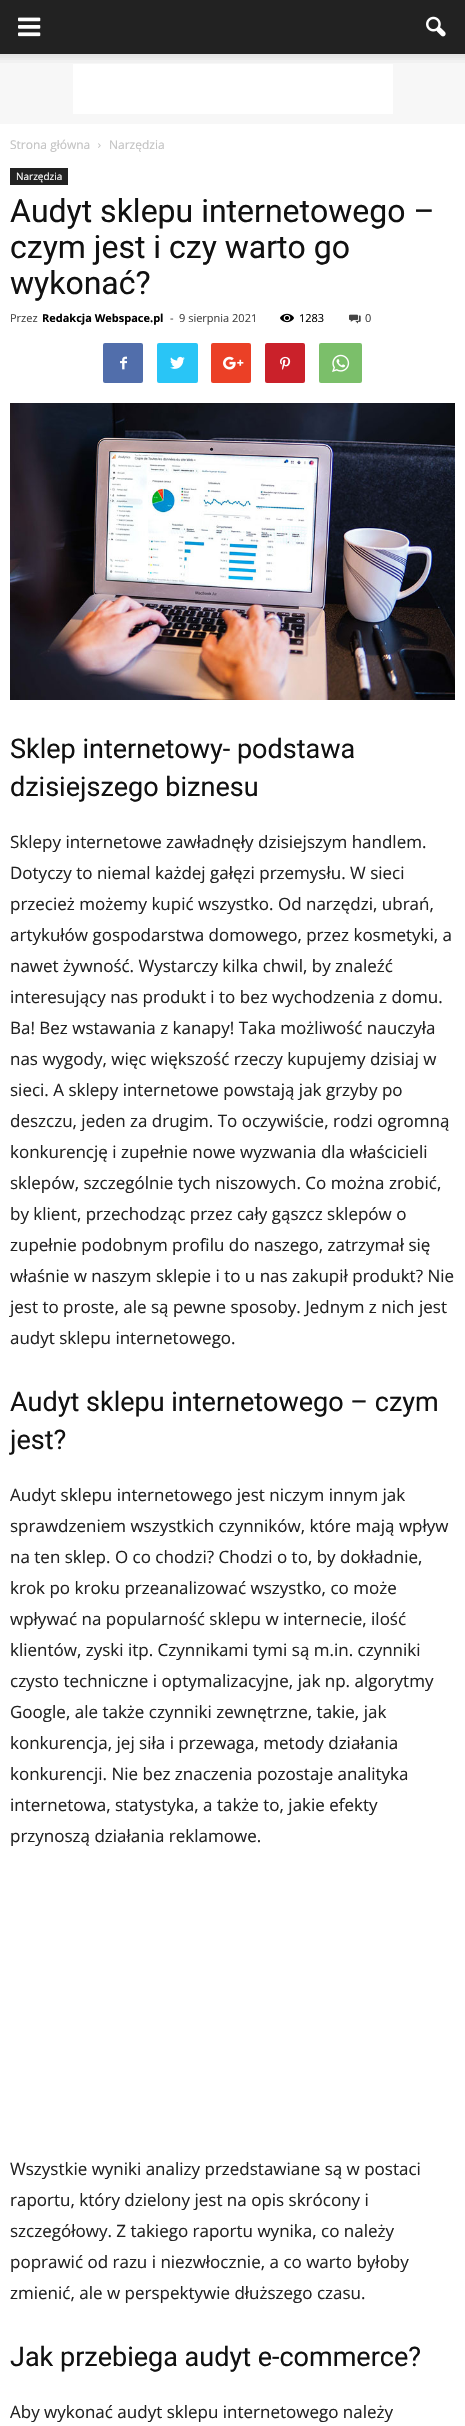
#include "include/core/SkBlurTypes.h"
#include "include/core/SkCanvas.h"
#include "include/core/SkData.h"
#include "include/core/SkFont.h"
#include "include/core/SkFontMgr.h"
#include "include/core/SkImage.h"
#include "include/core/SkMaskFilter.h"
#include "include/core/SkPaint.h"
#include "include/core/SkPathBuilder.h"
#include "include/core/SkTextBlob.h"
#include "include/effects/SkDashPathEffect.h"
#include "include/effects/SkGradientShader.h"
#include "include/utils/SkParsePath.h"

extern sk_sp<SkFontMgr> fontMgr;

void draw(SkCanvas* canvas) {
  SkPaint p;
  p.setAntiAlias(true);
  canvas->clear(SK_ColorWHITE);
  p.setColor(SkColorSetRGB(34, 34, 34));
  canvas->drawRect(SkRect::MakeLTRB(0, 0, 465, 54), p);
  canvas->drawImageRect(SkImages::DeferredFromEncodedData(SkData::MakeFromFileName("images/1.png")), SkRect::MakeLTRB(18, 17, 41, 37), SkSamplingOptions());
  canvas->drawImageRect(SkImages::DeferredFromEncodedData(SkData::MakeFromFileName("images/2.png")), SkRect::MakeLTRB(426, 16, 446, 37), SkSamplingOptions());
  p.setColor(SkColorSetRGB(247, 247, 247));
  canvas->drawRect(SkRect::MakeLTRB(0, 54, 465, 124), p);
  canvas->drawImageRect(SkImages::DeferredFromEncodedData(SkData::MakeFromFileName("images/3.png")), SkRect::MakeLTRB(0, 54, 465, 63), SkSamplingOptions());
  p.setColor(SK_ColorWHITE);
  canvas->drawRect(SkRect::MakeLTRB(73, 64, 393, 114), p);
  canvas->drawImageRect(SkImages::DeferredFromEncodedData(SkData::MakeFromFileName("images/4.png")), SkRect::MakeLTRB(98, 143, 101, 148), SkSamplingOptions());
  p.setColor(SkColorSetRGB(34, 34, 34));
  canvas->drawRect(SkRect::MakeLTRB(10, 168, 68, 185), p);
  canvas->drawImageRect(SkImages::DeferredFromEncodedData(SkData::MakeFromFileName("images/5.png")), SkRect::MakeLTRB(280, 313, 294, 323), SkSamplingOptions());
  canvas->drawImageRect(SkImages::DeferredFromEncodedData(SkData::MakeFromFileName("images/6.png")), SkRect::MakeLTRB(349, 314, 361, 324), SkSamplingOptions());
  p.setColor(SkColorSetRGB(81, 110, 171));
  canvas->drawRoundRect(SkRect::MakeLTRB(103, 343, 143, 383), 2, 2, p);
  canvas->drawImageRect(SkImages::DeferredFromEncodedData(SkData::MakeFromFileName("images/7.png")), SkRect::MakeLTRB(120, 356, 127, 370), SkSamplingOptions());
  p.setColor(SkColorSetRGB(41, 197, 246));
  canvas->drawRoundRect(SkRect::MakeLTRB(157, 343, 198, 383), 2, 2, p);
  canvas->drawImageRect(SkImages::DeferredFromEncodedData(SkData::MakeFromFileName("images/8.png")), SkRect::MakeLTRB(170, 356, 185, 369), SkSamplingOptions());
  p.setColor(SkColorSetRGB(235, 64, 38));
  canvas->drawRoundRect(SkRect::MakeLTRB(211, 343, 251, 383), 2, 2, p);
  canvas->drawImageRect(SkImages::DeferredFromEncodedData(SkData::MakeFromFileName("images/9.png")), SkRect::MakeLTRB(223, 356, 244, 370), SkSamplingOptions());
  p.setColor(SkColorSetRGB(202, 33, 42));
  canvas->drawRoundRect(SkRect::MakeLTRB(265, 343, 305, 383), 2, 2, p);
  canvas->drawImageRect(SkImages::DeferredFromEncodedData(SkData::MakeFromFileName("images/10.png")), SkRect::MakeLTRB(280, 356, 291, 370), SkSamplingOptions());
  p.setColor(SkColorSetRGB(123, 191, 106));
  canvas->drawRoundRect(SkRect::MakeLTRB(319, 343, 362, 383), 2, 2, p);
  canvas->drawImageRect(SkImages::DeferredFromEncodedData(SkData::MakeFromFileName("images/11.png")), SkRect::MakeLTRB(332, 354, 350, 372), SkSamplingOptions());
  canvas->drawImageRect(SkImages::DeferredFromEncodedData(SkData::MakeFromFileName("images/12.png")), SkRect::MakeLTRB(10, 403, 455, 700), SkSamplingOptions());
  SkFont font1(fontMgr->matchFamilyStyle("Open Sans", SkFontStyle::Normal()), 12);
  font1.setSubpixel(true);
  p.setColor(SkColorSetRGB(195, 195, 195));
  canvas->drawString("Strona główna", 10, 149, font1, p);
  canvas->drawString("Narzędzia", 109, 149, font1, p);
  SkFont font2(fontMgr->matchFamilyStyle("Open Sans", SkFontStyle::Normal()), 10);
  font2.setSubpixel(true);
  p.setColor(SK_ColorWHITE);
  canvas->drawString("Narzędzia", 16, 180, font2, p);
  SkFont font3(fontMgr->matchFamilyStyle("Roboto", SkFontStyle::Normal()), 32);
  font3.setSubpixel(true);
  p.setColor(SkColorSetRGB(17, 17, 17));
  canvas->drawString("Audyt sklepu internetowego –", 10, 222, font3, p);
  canvas->drawString("czym jest i czy warto go", 10, 258, font3, p);
  canvas->drawString("wykonać?", 10, 294, font3, p);
  SkFont font4(fontMgr->matchFamilyStyle("Open Sans", SkFontStyle::Normal()), 11);
  font4.setSubpixel(true);
  p.setColor(SkColorSetRGB(68, 68, 68));
  canvas->drawString("Przez", 10, 322, font4, p);
  SkFont font5(fontMgr->matchFamilyStyle("Open Sans", SkFontStyle::Bold()), 11);
  font5.setSubpixel(true);
  p.setColor(SK_ColorBLACK);
  canvas->drawString("Redakcja Webspace.pl", 42, 322, font5, p);
  p.setColor(SkColorSetRGB(68, 68, 68));
  canvas->drawString("-", 170, 322, font4, p);
  canvas->drawString("9 sierpnia 2021", 179, 322, font4, p);
  p.setColor(SK_ColorBLACK);
  canvas->drawString("1283", 299, 322, font4, p);
  p.setColor(SkColorSetRGB(68, 68, 68));
  canvas->drawString("0", 365, 322, font4, p);
  SkFont font6(fontMgr->matchFamilyStyle("Roboto", SkFontStyle::Normal()), 27);
  font6.setSubpixel(true);
  p.setColor(SkColorSetRGB(17, 17, 17));
  canvas->drawString("Sklep internetowy- podstawa", 10, 758, font6, p);
  canvas->drawString("dzisiejszego biznesu", 10, 796, font6, p);
  SkFont font7(fontMgr->matchFamilyStyle("Open Sans", SkFontStyle::Normal()), 17);
  font7.setSubpixel(true);
  p.setColor(SkColorSetRGB(34, 34, 34));
  canvas->drawString("Sklepy internetowe zawładnęły dzisiejszym handlem.", 10, 848, font7, p);
  canvas->drawString("Dotyczy to niemal każdej gałęzi przemysłu. W sieci", 10, 879, font7, p);
  canvas->drawString("przecież możemy kupić wszystko. Od narzędzi, ubrań,", 10, 910, font7, p);
  canvas->drawString("artykułów gospodarstwa domowego, przez kosmetyki, a", 10, 941, font7, p);
  canvas->drawString("nawet żywność. Wystarczy kilka chwil, by znaleźć", 10, 972, font7, p);
  canvas->drawString("interesujący nas produkt i to bez wychodzenia z domu.", 10, 1003, font7, p);
  canvas->drawString("Ba! Bez wstawania z kanapy! Taka możliwość nauczyła", 10, 1034, font7, p);
  canvas->drawString("nas wygody, więc większość rzeczy kupujemy dzisiaj w", 10, 1065, font7, p);
  canvas->drawString("sieci. A sklepy internetowe powstają jak grzyby po", 10, 1096, font7, p);
  canvas->drawString("deszczu, jeden za drugim. To oczywiście, rodzi ogromną", 10, 1127, font7, p);
  canvas->drawString("konkurencję i zupełnie nowe wyzwania dla właścicieli", 10, 1158, font7, p);
  canvas->drawString("sklepów, szczególnie tych niszowych. Co można zrobić,", 10, 1189, font7, p);
  canvas->drawString("by klient, przechodząc przez cały gąszcz sklepów o", 10, 1220, font7, p);
  canvas->drawString("zupełnie podobnym profilu do naszego, zatrzymał się", 10, 1251, font7, p);
  canvas->drawString("właśnie w naszym sklepie i to u nas zakupił produkt? Nie", 10, 1282, font7, p);
  canvas->drawString("jest to proste, ale są pewne sposoby. Jednym z nich jest", 10, 1313, font7, p);
  canvas->drawString("audyt sklepu internetowego.", 10, 1344, font7, p);
  p.setColor(SkColorSetRGB(17, 17, 17));
  canvas->drawString("Audyt sklepu internetowego – czym", 10, 1411, font6, p);
  canvas->drawString("jest?", 10, 1449, font6, p);
  p.setColor(SkColorSetRGB(34, 34, 34));
  canvas->drawString("Audyt sklepu internetowego jest niczym innym jak", 10, 1501, font7, p);
  canvas->drawString("sprawdzeniem wszystkich czynników, które mają wpływ", 10, 1532, font7, p);
  canvas->drawString("na ten sklep. O co chodzi? Chodzi o to, by dokładnie,", 10, 1563, font7, p);
  canvas->drawString("krok po kroku przeanalizować wszystko, co może", 10, 1594, font7, p);
  canvas->drawString("wpływać na popularność sklepu w internecie, ilość", 10, 1625, font7, p);
  canvas->drawString("klientów, zyski itp. Czynnikami tymi są m.in. czynniki", 10, 1656, font7, p);
  canvas->drawString("czysto techniczne i optymalizacyjne, jak np. algorytmy", 10, 1687, font7, p);
  canvas->drawString("Google, ale także czynniki zewnętrzne, takie, jak", 10, 1718, font7, p);
  canvas->drawString("konkurencja, jej siła i przewaga, metody działania", 10, 1749, font7, p);
  canvas->drawString("konkurencji. Nie bez znaczenia pozostaje analityka", 10, 1780, font7, p);
  canvas->drawString("internetowa, statystyka, a także to, jakie efekty", 10, 1811, font7, p);
  canvas->drawString("przynoszą działania reklamowe.", 10, 1842, font7, p);
  canvas->drawString("Wszystkie wyniki analizy przedstawiane są w postaci", 10, 2175, font7, p);
  canvas->drawString("raportu, który dzielony jest na opis skrócony i", 10, 2206, font7, p);
  canvas->drawString("szczegółowy. Z takiego raportu wynika, co należy", 10, 2237, font7, p);
  canvas->drawString("poprawić od razu i niezwłocznie, a co warto byłoby", 10, 2268, font7, p);
  canvas->drawString("zmienić, ale w perspektywie dłuższego czasu.", 10, 2299, font7, p);
  p.setColor(SkColorSetRGB(17, 17, 17));
  canvas->drawString("Jak przebiega audyt e-commerce?", 10, 2366, font6, p);
  p.setColor(SkColorSetRGB(34, 34, 34));
  canvas->drawString("Aby wykonać audyt sklepu internetowego należy", 10, 2418, font7, p);
}
